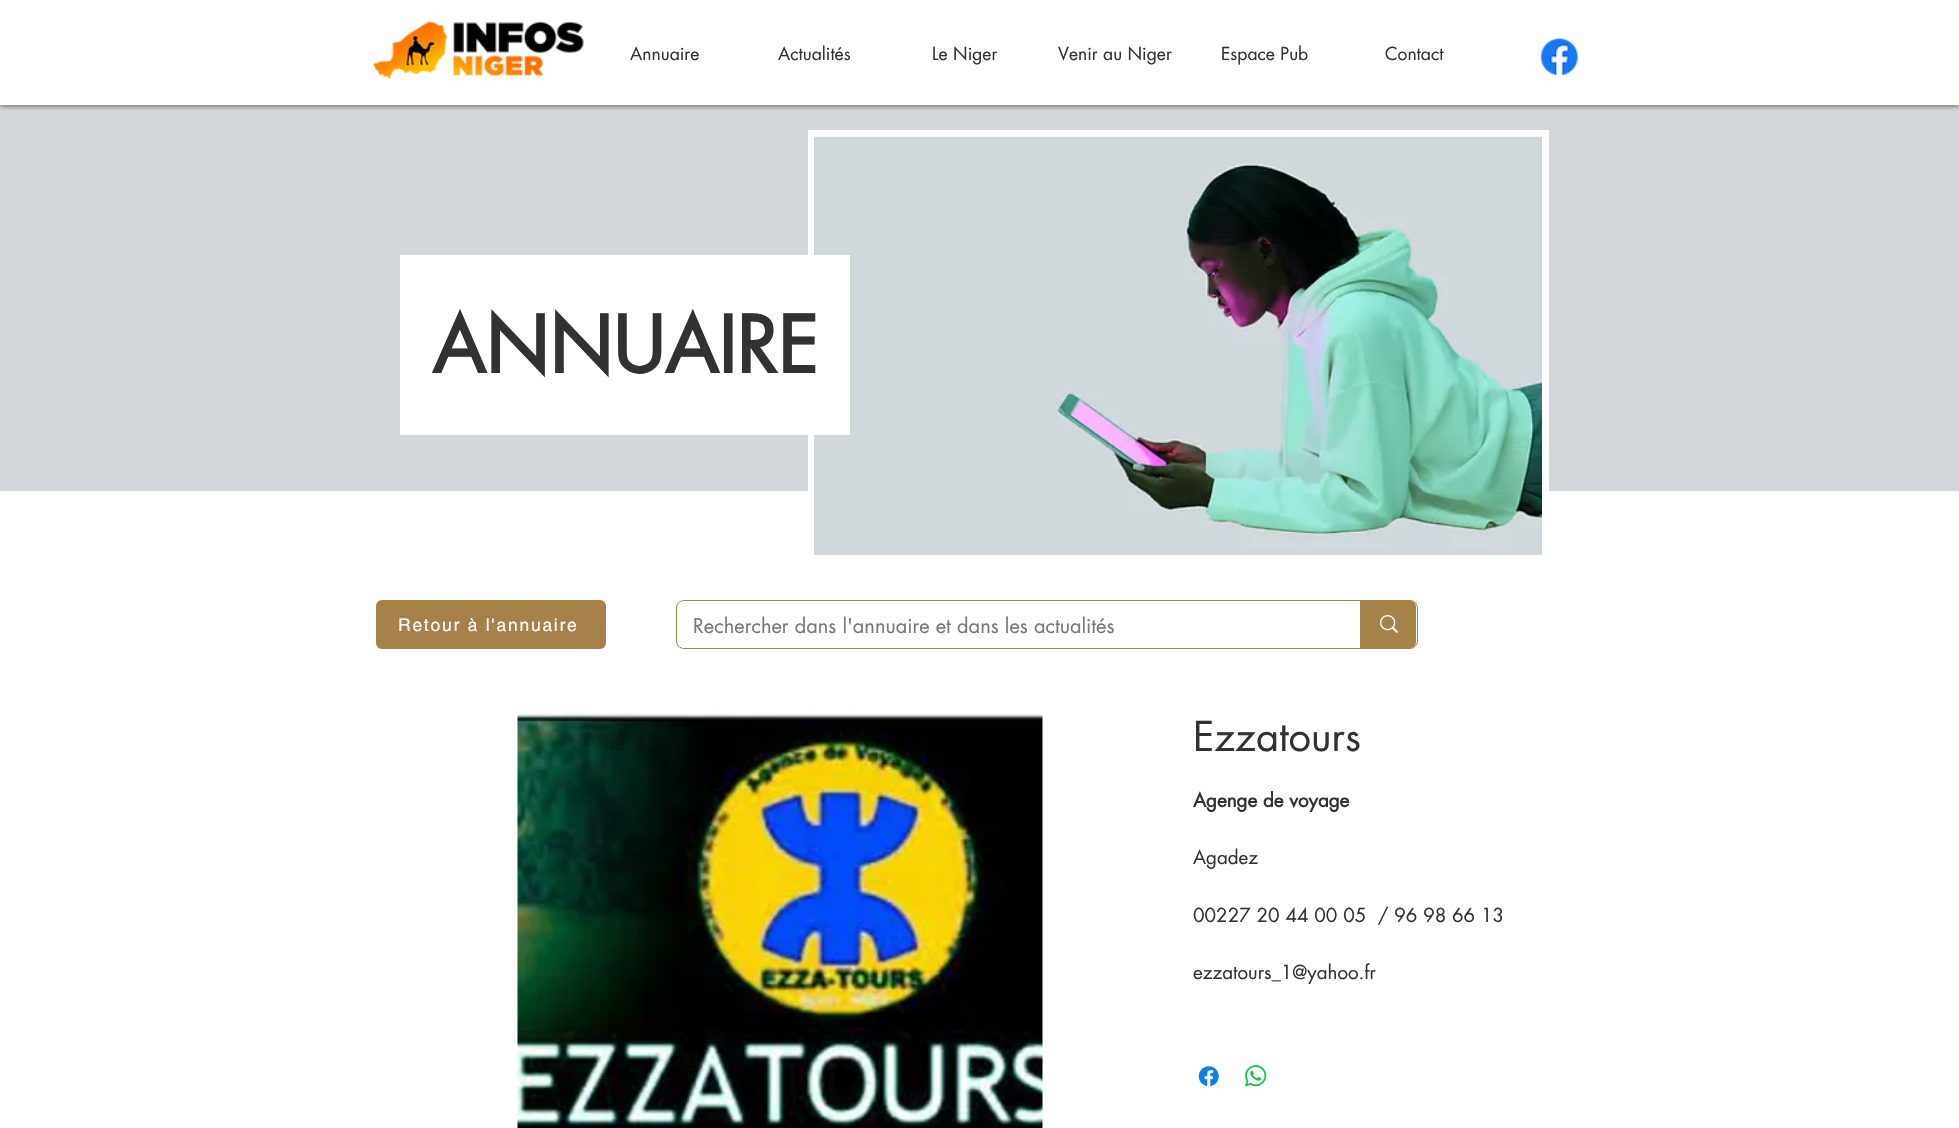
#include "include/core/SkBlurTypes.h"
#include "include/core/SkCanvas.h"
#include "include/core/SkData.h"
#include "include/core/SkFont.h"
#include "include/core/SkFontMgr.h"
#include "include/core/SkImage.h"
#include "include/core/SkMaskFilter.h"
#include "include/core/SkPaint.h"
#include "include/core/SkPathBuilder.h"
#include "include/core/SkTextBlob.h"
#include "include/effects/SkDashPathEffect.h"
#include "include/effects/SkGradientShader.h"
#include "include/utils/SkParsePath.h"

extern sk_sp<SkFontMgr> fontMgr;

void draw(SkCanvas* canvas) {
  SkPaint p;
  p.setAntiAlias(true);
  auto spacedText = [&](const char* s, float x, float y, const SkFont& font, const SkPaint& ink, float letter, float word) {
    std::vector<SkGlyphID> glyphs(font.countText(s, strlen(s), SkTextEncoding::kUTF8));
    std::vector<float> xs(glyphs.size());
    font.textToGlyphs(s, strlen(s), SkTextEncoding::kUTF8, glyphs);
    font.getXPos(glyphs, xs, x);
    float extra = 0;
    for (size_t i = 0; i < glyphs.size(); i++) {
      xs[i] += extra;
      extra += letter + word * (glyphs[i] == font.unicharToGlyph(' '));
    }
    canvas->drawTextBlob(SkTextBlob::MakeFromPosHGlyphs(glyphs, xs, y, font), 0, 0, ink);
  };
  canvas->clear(SK_ColorWHITE);
  p.setColor(SkColorSetRGB(210, 215, 219));
  canvas->drawRect(SkRect::MakeLTRB(0, 105, 1959, 491), p);
  canvas->save();
  canvas->clipRect(SkRect::MakeLTRB(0, 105, 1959, 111));
  p.setColor(SkColorSetARGB(179, 0, 0, 0));
  p.setMaskFilter(SkMaskFilter::MakeBlur(kNormal_SkBlurStyle, 3));
  canvas->drawRect(SkRect::MakeLTRB(0, 0, 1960, 105), p);
  p.setMaskFilter(nullptr);
  canvas->restore();
  canvas->drawImageRect(SkImages::DeferredFromEncodedData(SkData::MakeFromFileName("images/1.png")), SkRect::MakeLTRB(373, 21, 584, 79), SkSamplingOptions());
  canvas->drawImageRect(SkImages::DeferredFromEncodedData(SkData::MakeFromFileName("images/2.png")), SkRect::MakeLTRB(1540, 37, 1579, 76), SkSamplingOptions());
  p.setColor(SK_ColorWHITE);
  canvas->drawRect(SkRect::MakeLTRB(808, 130, 1549, 491), p);
  canvas->drawImageRect(SkImages::DeferredFromEncodedData(SkData::MakeFromFileName("images/3.png")), SkRect::MakeLTRB(814, 136, 1543, 555), SkSamplingOptions());
  canvas->drawRect(SkRect::MakeLTRB(400, 255, 850, 435), p);
  p.setColor(SkColorSetRGB(166, 130, 74));
  canvas->drawRoundRect(SkRect::MakeLTRB(376, 600, 606, 649), 6, 6, p);
  p.setStyle(SkPaint::kStroke_Style);
  p.setStrokeWidth(1);
  canvas->drawRoundRect(SkRect::MakeLTRB(676.5f, 600.5f, 1417.5f, 648.5f), 7.5f, 7.5f, p);
  p.setStyle(SkPaint::kFill_Style);
  p.setColor(SK_ColorWHITE);
  canvas->drawRoundRect(SkRect::MakeLTRB(678, 601, 1416, 648), 6, 6, p);
  p.setColor(SkColorSetRGB(166, 130, 74));
  canvas->drawPath(SkPathBuilder().moveTo(1360, 601).lineTo(1410, 601).cubicTo(1413.5f, 601, 1416, 603.5f, 1416, 607).lineTo(1416, 642).cubicTo(1416, 645.5f, 1413.5f, 648, 1410, 648).lineTo(1360, 648).close().detach(), p);
  canvas->drawImageRect(SkImages::DeferredFromEncodedData(SkData::MakeFromFileName("images/4.png")), SkRect::MakeLTRB(1380, 615, 1398, 633), SkSamplingOptions());
  canvas->drawImageRect(SkImages::DeferredFromEncodedData(SkData::MakeFromFileName("images/5.png")), SkRect::MakeLTRB(517, 713, 1043, 1128), SkSamplingOptions());
  canvas->drawImageRect(SkImages::DeferredFromEncodedData(SkData::MakeFromFileName("images/6.png")), SkRect::MakeLTRB(1198, 1066, 1219, 1087), SkSamplingOptions());
  canvas->drawImageRect(SkImages::DeferredFromEncodedData(SkData::MakeFromFileName("images/7.png")), SkRect::MakeLTRB(1245, 1065, 1267, 1087), SkSamplingOptions());
  SkFont font1(fontMgr->matchFamilyStyle("futura", SkFontStyle::Normal()), 17.5f);
  font1.setSubpixel(true);
  p.setColor(SkColorSetRGB(50, 50, 50));
  canvas->drawString("Annuaire", 630, 60, font1, p);
  canvas->drawString("Actualités", 778, 60, font1, p);
  canvas->drawString("Le Niger", 932, 60, font1, p);
  canvas->drawString("Venir au Niger", 1058, 60, font1, p);
  canvas->drawString("Espace Pub", 1221, 60, font1, p);
  canvas->drawString("Contact", 1385, 60, font1, p);
  SkFont font2(fontMgr->matchFamilyStyle("futura", SkFontStyle::Bold()), 76.25f);
  font2.setSubpixel(true);
  canvas->drawString("ANNUAIRE", 432, 373, font2, p);
  SkFont font3(fontMgr->matchFamilyStyle("helvetica", SkFontStyle::Normal()), 17.5f);
  font3.setSubpixel(true);
  p.setColor(SK_ColorWHITE);
  spacedText("Retour à l'annuaire", 398, 631, font3, p, 1.75f, 0);
  SkFont font4(fontMgr->matchFamilyStyle("futura", SkFontStyle::Normal()), 20);
  font4.setSubpixel(true);
  p.setColor(SkColorSetRGB(120, 120, 120));
  canvas->drawString("Rechercher dans l'annuaire et dans les actualités", 693, 633, font4, p);
  SkFont font5(fontMgr->matchFamilyStyle("futura", SkFontStyle::Normal()), 40);
  font5.setSubpixel(true);
  p.setColor(SkColorSetRGB(50, 50, 50));
  canvas->drawString("Ezzatours", 1193, 751, font5, p);
  SkFont font6(fontMgr->matchFamilyStyle("futura", SkFontStyle::Bold()), 18.75f);
  font6.setSubpixel(true);
  canvas->drawString("Agenge de voyage", 1193, 807, font6, p);
  SkFont font7(fontMgr->matchFamilyStyle("futura", SkFontStyle::Normal()), 18.75f);
  font7.setSubpixel(true);
  canvas->drawString("Agadez", 1193, 864, font7, p);
  canvas->drawString("00227 20 44 00 05  / 96 98 66 13", 1193, 922, font7, p);
  canvas->drawString("ezzatours_1@yahoo.fr", 1193, 979, font7, p);
}
